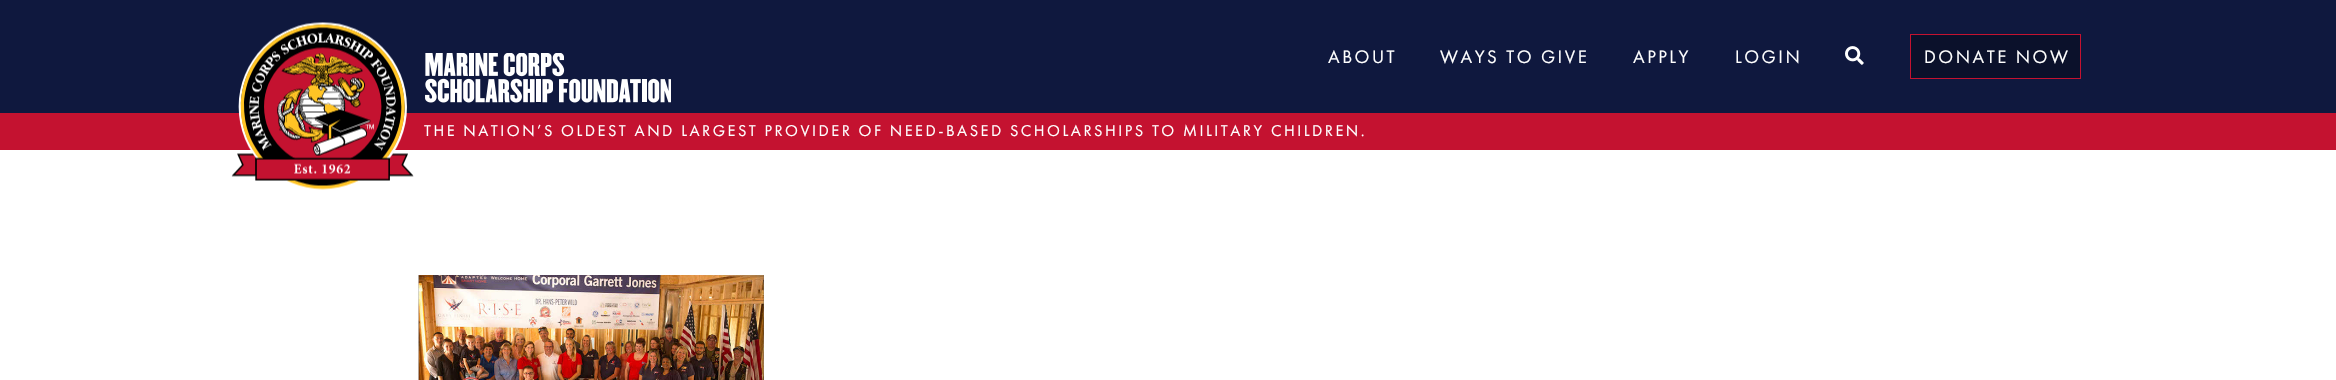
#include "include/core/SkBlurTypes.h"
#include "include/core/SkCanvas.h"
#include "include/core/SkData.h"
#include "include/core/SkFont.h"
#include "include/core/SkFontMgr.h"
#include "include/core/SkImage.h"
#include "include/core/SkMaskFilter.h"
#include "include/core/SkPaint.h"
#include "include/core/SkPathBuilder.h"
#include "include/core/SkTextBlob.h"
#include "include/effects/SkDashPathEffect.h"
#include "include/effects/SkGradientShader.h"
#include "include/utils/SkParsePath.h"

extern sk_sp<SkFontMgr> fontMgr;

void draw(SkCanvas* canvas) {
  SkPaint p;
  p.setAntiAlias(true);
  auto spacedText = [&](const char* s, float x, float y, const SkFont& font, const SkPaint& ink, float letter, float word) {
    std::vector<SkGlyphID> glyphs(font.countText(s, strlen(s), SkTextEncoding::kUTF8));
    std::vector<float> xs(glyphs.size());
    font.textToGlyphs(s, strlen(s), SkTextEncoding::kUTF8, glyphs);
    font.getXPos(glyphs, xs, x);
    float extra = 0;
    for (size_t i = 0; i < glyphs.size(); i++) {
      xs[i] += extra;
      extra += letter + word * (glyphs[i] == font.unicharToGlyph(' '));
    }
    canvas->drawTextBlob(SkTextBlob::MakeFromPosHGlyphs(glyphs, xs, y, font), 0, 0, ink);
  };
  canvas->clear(SK_ColorWHITE);
  p.setColor(SkColorSetRGB(15, 24, 62));
  canvas->drawRect(SkRect::MakeLTRB(0, 0, 2336, 113), p);
  p.setColor(SkColorSetRGB(196, 18, 48));
  canvas->drawRect(SkRect::MakeLTRB(0, 113, 2336, 150), p);
  canvas->drawImageRect(SkImages::DeferredFromEncodedData(SkData::MakeFromFileName("images/1.png")), SkRect::MakeLTRB(231, 22, 414, 190), SkSamplingOptions());
  canvas->drawImageRect(SkImages::DeferredFromEncodedData(SkData::MakeFromFileName("images/2.png")), SkRect::MakeLTRB(425, 53, 671, 103), SkSamplingOptions());
  canvas->drawImageRect(SkImages::DeferredFromEncodedData(SkData::MakeFromFileName("images/3.png")), SkRect::MakeLTRB(1845, 46, 1864, 65), SkSamplingOptions());
  p.setColor(SkColorSetRGB(11, 17, 43));
  canvas->drawRect(SkRect::MakeLTRB(1910.5f, 34.5f, 2080.5f, 78.5f), p);
  p.setStyle(SkPaint::kStroke_Style);
  p.setStrokeWidth(1);
  p.setColor(SkColorSetRGB(196, 18, 48));
  canvas->drawRect(SkRect::MakeLTRB(1910.5f, 34.5f, 2080.5f, 78.5f), p);
  canvas->drawImageRect(SkImages::DeferredFromEncodedData(SkData::MakeFromFileName("images/4.png")), SkRect::MakeLTRB(418, 275, 764, 380), SkSamplingOptions());
  canvas->drawImageRect(SkImages::DeferredFromEncodedData(SkData::MakeFromFileName("images/5.png")), SkRect::MakeLTRB(418, 275, 764, 380), SkSamplingOptions());
  SkFont font1(fontMgr->matchFamilyStyle("Futura PT", SkFontStyle::Normal()), 18.75f);
  font1.setSubpixel(true);
  p.setStyle(SkPaint::kFill_Style);
  p.setColor(SK_ColorWHITE);
  spacedText("ABOUT", 1328, 63, font1, p, 2.5f, 0);
  spacedText("WAYS TO GIVE", 1440, 63, font1, p, 2.5f, 0);
  spacedText("APPLY", 1633, 63, font1, p, 2.5f, 0);
  spacedText("LOGIN", 1735, 63, font1, p, 2.5f, 0);
  spacedText("DONATE NOW", 1924, 63, font1, p, 2.5f, 0);
  SkFont font2(fontMgr->matchFamilyStyle("Futura PT", SkFontStyle::Normal()), 16.25f);
  font2.setSubpixel(true);
  spacedText("THE NATION’S OLDEST AND LARGEST PROVIDER OF NEED-BASED SCHOLARSHIPS TO MILITARY CHILDREN.", 424, 136, font2, p, 2.5f, 0);
}
